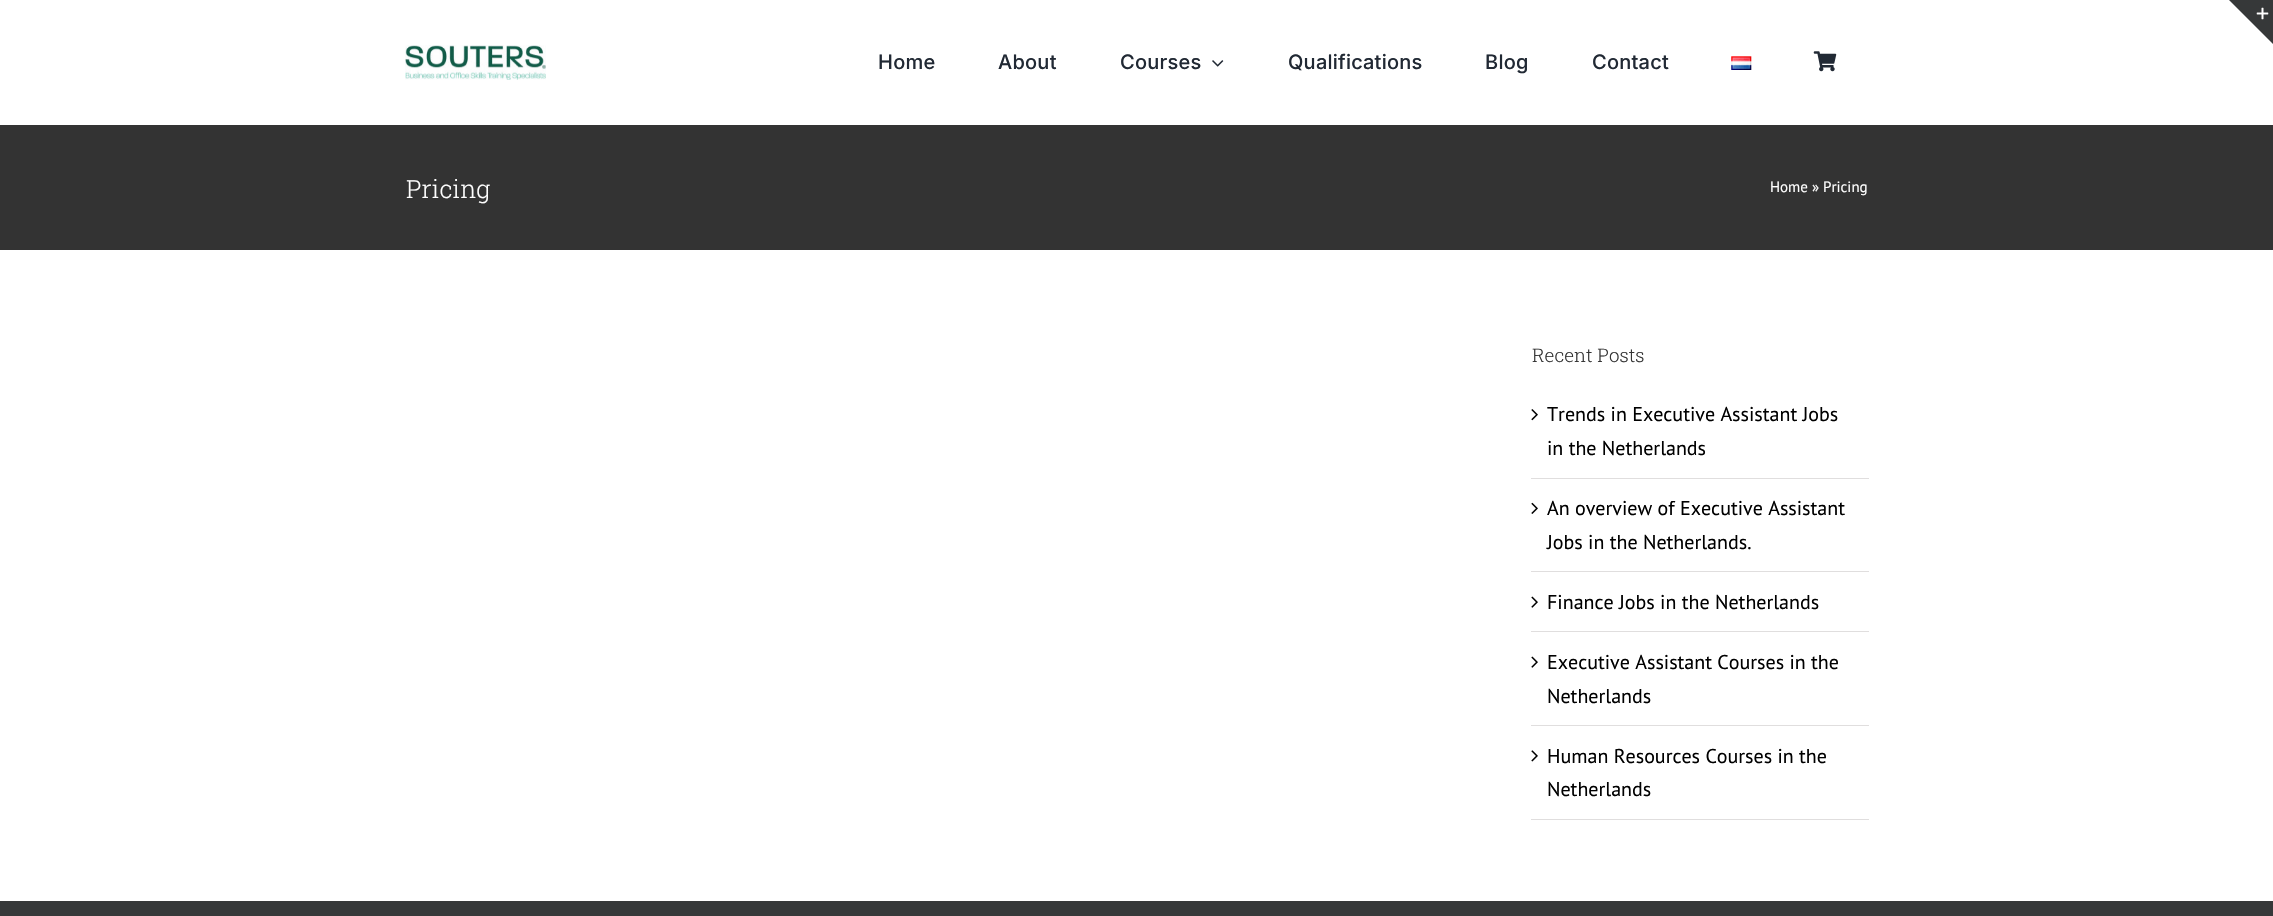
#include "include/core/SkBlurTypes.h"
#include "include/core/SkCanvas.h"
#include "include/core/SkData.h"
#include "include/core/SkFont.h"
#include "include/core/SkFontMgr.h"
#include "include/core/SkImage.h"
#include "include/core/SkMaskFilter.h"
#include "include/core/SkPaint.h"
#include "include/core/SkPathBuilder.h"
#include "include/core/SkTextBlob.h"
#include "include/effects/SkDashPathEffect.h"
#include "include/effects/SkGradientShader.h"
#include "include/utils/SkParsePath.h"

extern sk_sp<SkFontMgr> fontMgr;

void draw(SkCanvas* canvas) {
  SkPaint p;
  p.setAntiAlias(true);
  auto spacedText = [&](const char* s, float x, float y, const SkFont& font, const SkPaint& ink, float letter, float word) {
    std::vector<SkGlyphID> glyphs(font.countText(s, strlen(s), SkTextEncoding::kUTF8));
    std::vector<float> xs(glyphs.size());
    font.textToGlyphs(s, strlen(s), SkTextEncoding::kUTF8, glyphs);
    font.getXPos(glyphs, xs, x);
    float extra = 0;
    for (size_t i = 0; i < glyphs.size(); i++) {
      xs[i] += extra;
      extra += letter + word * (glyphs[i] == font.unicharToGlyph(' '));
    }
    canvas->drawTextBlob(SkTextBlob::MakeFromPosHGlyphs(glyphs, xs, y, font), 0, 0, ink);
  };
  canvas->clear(SK_ColorWHITE);
  p.setColor(SkColorSetRGB(54, 56, 57));
  canvas->drawPath(SkPathBuilder().moveTo(2229, 0).lineTo(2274, 0).lineTo(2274, 45).close().detach(), p);
  canvas->drawImageRect(SkImages::DeferredFromEncodedData(SkData::MakeFromFileName("images/1.png")), SkRect::MakeLTRB(2256, 7, 2269, 20), SkSamplingOptions());
  canvas->drawImageRect(SkImages::DeferredFromEncodedData(SkData::MakeFromFileName("images/2.png")), SkRect::MakeLTRB(405, 45, 546, 80), SkSamplingOptions());
  canvas->drawImageRect(SkImages::DeferredFromEncodedData(SkData::MakeFromFileName("images/3.png")), SkRect::MakeLTRB(1212, 60, 1224, 67), SkSamplingOptions());
  canvas->drawImageRect(SkImages::DeferredFromEncodedData(SkData::MakeFromFileName("images/4.png")), SkRect::MakeLTRB(1731, 56, 1752, 70), SkSamplingOptions());
  canvas->drawImageRect(SkImages::DeferredFromEncodedData(SkData::MakeFromFileName("images/5.png")), SkRect::MakeLTRB(1813, 51, 1837, 72), SkSamplingOptions());
  p.setColor(SkColorSetRGB(51, 51, 51));
  canvas->drawRect(SkRect::MakeLTRB(0, 125, 2273, 250), p);
  p.setColor(SkColorSetRGB(224, 222, 222));
  canvas->drawRect(SkRect::MakeLTRB(1531, 478, 1869, 479), p);
  canvas->drawImageRect(SkImages::DeferredFromEncodedData(SkData::MakeFromFileName("images/6.png")), SkRect::MakeLTRB(1531, 409, 1538, 421), SkSamplingOptions());
  canvas->drawRect(SkRect::MakeLTRB(1531, 571, 1869, 572), p);
  canvas->drawImageRect(SkImages::DeferredFromEncodedData(SkData::MakeFromFileName("images/7.png")), SkRect::MakeLTRB(1531, 502, 1538, 514), SkSamplingOptions());
  canvas->drawRect(SkRect::MakeLTRB(1531, 631, 1869, 632), p);
  canvas->drawImageRect(SkImages::DeferredFromEncodedData(SkData::MakeFromFileName("images/8.png")), SkRect::MakeLTRB(1531, 596, 1538, 608), SkSamplingOptions());
  canvas->drawRect(SkRect::MakeLTRB(1531, 725, 1869, 726), p);
  canvas->drawImageRect(SkImages::DeferredFromEncodedData(SkData::MakeFromFileName("images/8.png")), SkRect::MakeLTRB(1531, 656, 1538, 668), SkSamplingOptions());
  canvas->drawRect(SkRect::MakeLTRB(1531, 819, 1869, 820), p);
  canvas->drawImageRect(SkImages::DeferredFromEncodedData(SkData::MakeFromFileName("images/9.png")), SkRect::MakeLTRB(1531, 750, 1538, 762), SkSamplingOptions());
  p.setColor(SkColorSetRGB(54, 56, 57));
  canvas->drawRect(SkRect::MakeLTRB(0, 901, 2273, 916), p);
  SkFont font1(fontMgr->matchFamilyStyle("Inter", SkFontStyle(500, SkFontStyle::kNormal_Width, SkFontStyle::kUpright_Slant)), 20);
  font1.setSubpixel(true);
  p.setColor(SkColorSetRGB(33, 41, 52));
  spacedText("Home", 878, 69, font1, p, 0.25f, 0);
  spacedText("About", 998, 69, font1, p, 0.25f, 0);
  spacedText("Courses", 1120, 69, font1, p, 0.25f, 0);
  spacedText("Qualifications", 1288, 69, font1, p, 0.25f, 0);
  spacedText("Blog", 1485, 69, font1, p, 0.25f, 0);
  spacedText("Contact", 1592, 69, font1, p, 0.25f, 0);
  SkFont font2(fontMgr->matchFamilyStyle("Roboto Slab", SkFontStyle(300, SkFontStyle::kNormal_Width, SkFontStyle::kUpright_Slant)), 25);
  font2.setSubpixel(true);
  p.setColor(SK_ColorWHITE);
  canvas->drawString("Pricing", 406, 198, font2, p);
  SkFont font3(fontMgr->matchFamilyStyle("PT Sans", SkFontStyle::Normal()), 15);
  font3.setSubpixel(true);
  canvas->drawString("Home » Pricing", 1770, 192, font3, p);
  SkFont font4(fontMgr->matchFamilyStyle("Roboto Slab", SkFontStyle(300, SkFontStyle::kNormal_Width, SkFontStyle::kUpright_Slant)), 18.75f);
  font4.setSubpixel(true);
  p.setColor(SkColorSetRGB(51, 51, 51));
  canvas->drawString("Recent Posts", 1532, 362, font4, p);
  SkFont font5(fontMgr->matchFamilyStyle("PT Sans", SkFontStyle::Normal()), 20);
  font5.setSubpixel(true);
  p.setColor(SK_ColorBLACK);
  canvas->drawString("Trends in Executive Assistant Jobs", 1547, 421, font5, p);
  canvas->drawString("in the Netherlands", 1547, 455, font5, p);
  canvas->drawString("An overview of Executive Assistant", 1547, 515, font5, p);
  canvas->drawString("Jobs in the Netherlands.", 1547, 549, font5, p);
  canvas->drawString("Finance Jobs in the Netherlands", 1547, 609, font5, p);
  canvas->drawString("Executive Assistant Courses in the", 1547, 669, font5, p);
  canvas->drawString("Netherlands", 1547, 703, font5, p);
  canvas->drawString("Human Resources Courses in the", 1547, 763, font5, p);
  canvas->drawString("Netherlands", 1547, 796, font5, p);
}
